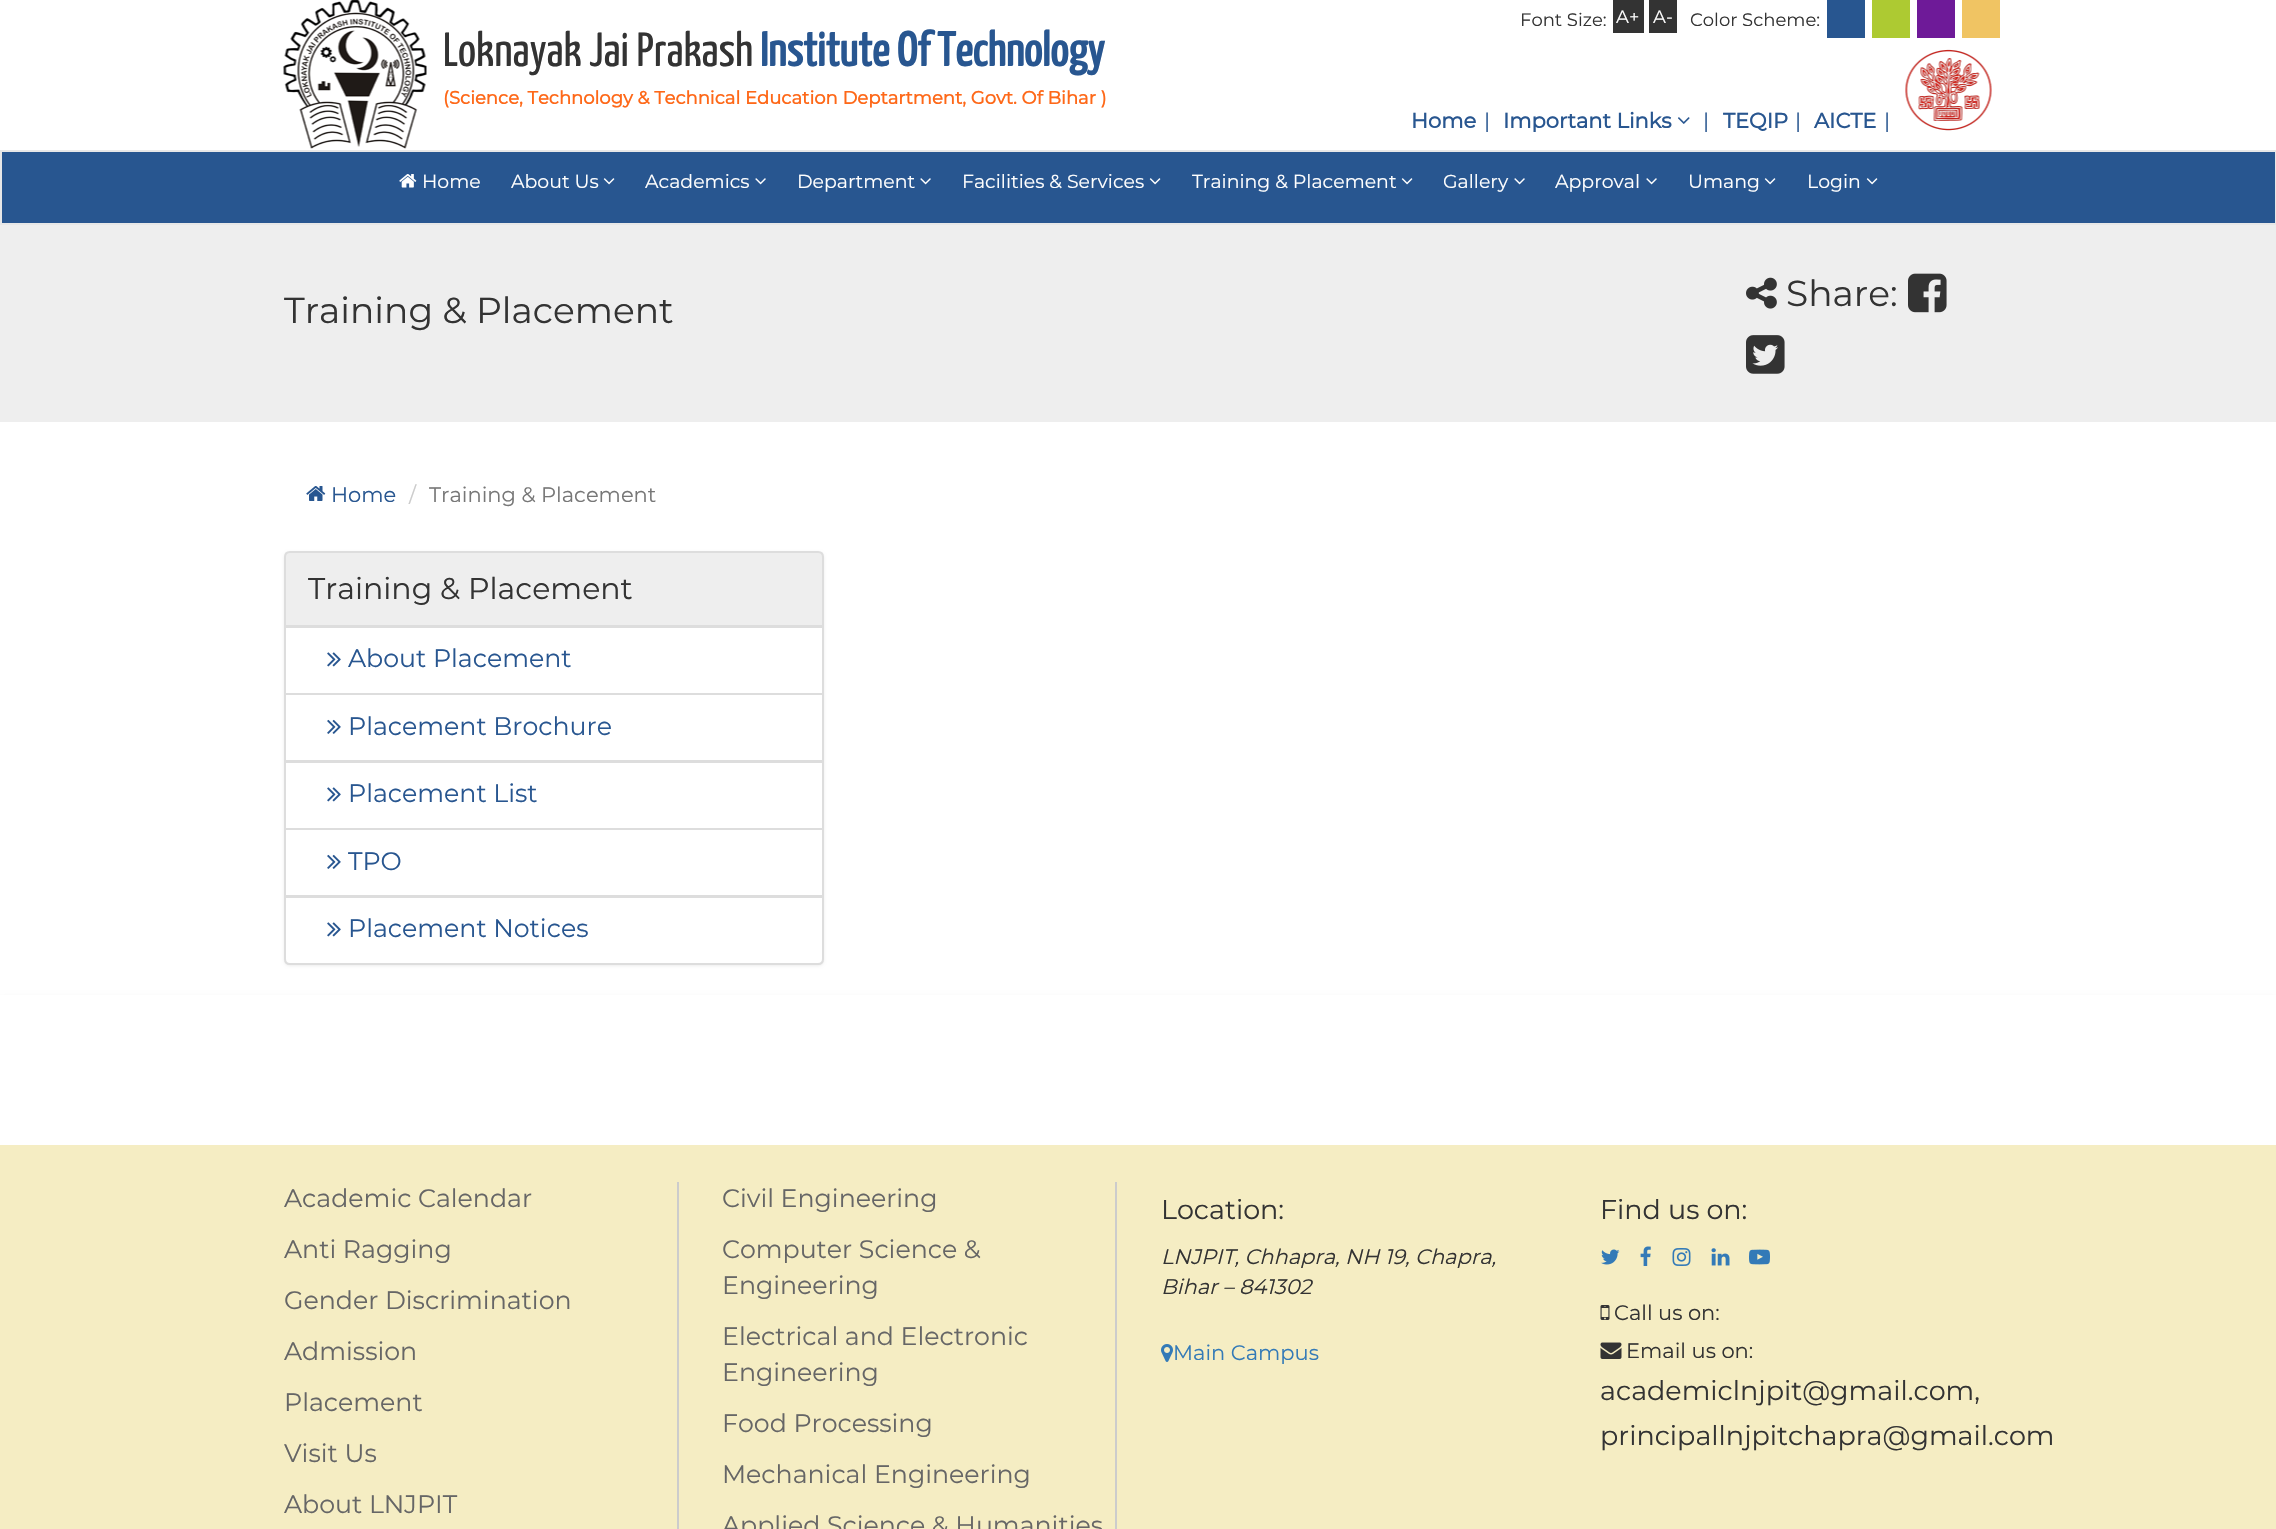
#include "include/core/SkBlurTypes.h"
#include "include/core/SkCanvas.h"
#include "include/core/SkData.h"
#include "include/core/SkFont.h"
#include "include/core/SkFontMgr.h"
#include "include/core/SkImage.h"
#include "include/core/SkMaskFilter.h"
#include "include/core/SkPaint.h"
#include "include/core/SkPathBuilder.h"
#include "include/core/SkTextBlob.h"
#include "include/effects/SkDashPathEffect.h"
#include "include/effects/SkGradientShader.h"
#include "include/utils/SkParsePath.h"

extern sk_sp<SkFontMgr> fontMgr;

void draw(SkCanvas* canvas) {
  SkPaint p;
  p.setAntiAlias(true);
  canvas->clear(SK_ColorWHITE);
  p.setColor(SkColorSetRGB(51, 51, 51));
  canvas->drawRect(SkRect::MakeLTRB(1613, 0, 1644, 33), p);
  canvas->drawRect(SkRect::MakeLTRB(1649, 0, 1677, 33), p);
  p.setColor(SkColorSetRGB(40, 86, 144));
  canvas->drawRect(SkRect::MakeLTRB(1827, 0, 1865, 38), p);
  p.setColor(SkColorSetRGB(173, 202, 50));
  canvas->drawRect(SkRect::MakeLTRB(1872, 0, 1910, 38), p);
  p.setColor(SkColorSetRGB(110, 26, 152));
  canvas->drawRect(SkRect::MakeLTRB(1917, 0, 1955, 38), p);
  p.setColor(SkColorSetRGB(240, 196, 99));
  canvas->drawRect(SkRect::MakeLTRB(1962, 0, 2000, 38), p);
  canvas->drawImageRect(SkImages::DeferredFromEncodedData(SkData::MakeFromFileName("images/1.png")), SkRect::MakeLTRB(283, 0, 427, 149), SkSamplingOptions());
  canvas->drawImageRect(SkImages::DeferredFromEncodedData(SkData::MakeFromFileName("images/2.png")), SkRect::MakeLTRB(1678, 117, 1690, 124), SkSamplingOptions());
  canvas->drawImageRect(SkImages::DeferredFromEncodedData(SkData::MakeFromFileName("images/3.png")), SkRect::MakeLTRB(1905, 49, 1992, 131), SkSamplingOptions());
  p.setColor(SkColorSetRGB(40, 86, 144));
  canvas->drawRect(SkRect::MakeLTRB(1, 151, 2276, 224), p);
  p.setStyle(SkPaint::kStroke_Style);
  p.setStrokeWidth(2);
  p.setColor(SkColorSetRGB(231, 231, 231));
  canvas->drawRect(SkRect::MakeLTRB(1, 151, 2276, 224), p);
  canvas->drawImageRect(SkImages::DeferredFromEncodedData(SkData::MakeFromFileName("images/4.png")), SkRect::MakeLTRB(399, 174, 417, 188), SkSamplingOptions());
  canvas->drawImageRect(SkImages::DeferredFromEncodedData(SkData::MakeFromFileName("images/5.png")), SkRect::MakeLTRB(603, 178, 615, 185), SkSamplingOptions());
  canvas->drawImageRect(SkImages::DeferredFromEncodedData(SkData::MakeFromFileName("images/6.png")), SkRect::MakeLTRB(755, 178, 766, 185), SkSamplingOptions());
  canvas->drawImageRect(SkImages::DeferredFromEncodedData(SkData::MakeFromFileName("images/6.png")), SkRect::MakeLTRB(920, 178, 931, 185), SkSamplingOptions());
  canvas->drawImageRect(SkImages::DeferredFromEncodedData(SkData::MakeFromFileName("images/5.png")), SkRect::MakeLTRB(1149, 178, 1161, 185), SkSamplingOptions());
  canvas->drawImageRect(SkImages::DeferredFromEncodedData(SkData::MakeFromFileName("images/5.png")), SkRect::MakeLTRB(1401, 178, 1413, 185), SkSamplingOptions());
  canvas->drawImageRect(SkImages::DeferredFromEncodedData(SkData::MakeFromFileName("images/6.png")), SkRect::MakeLTRB(1514, 178, 1525, 185), SkSamplingOptions());
  canvas->drawImageRect(SkImages::DeferredFromEncodedData(SkData::MakeFromFileName("images/6.png")), SkRect::MakeLTRB(1646, 178, 1657, 185), SkSamplingOptions());
  canvas->drawImageRect(SkImages::DeferredFromEncodedData(SkData::MakeFromFileName("images/5.png")), SkRect::MakeLTRB(1764, 178, 1776, 185), SkSamplingOptions());
  canvas->drawImageRect(SkImages::DeferredFromEncodedData(SkData::MakeFromFileName("images/5.png")), SkRect::MakeLTRB(1866, 178, 1878, 185), SkSamplingOptions());
  p.setStyle(SkPaint::kFill_Style);
  p.setColor(SkColorSetRGB(238, 238, 238));
  canvas->drawRect(SkRect::MakeLTRB(0, 225, 2276, 422), p);
  canvas->drawImageRect(SkImages::DeferredFromEncodedData(SkData::MakeFromFileName("images/7.png")), SkRect::MakeLTRB(1746, 277, 1777, 309), SkSamplingOptions());
  canvas->drawImageRect(SkImages::DeferredFromEncodedData(SkData::MakeFromFileName("images/8.png")), SkRect::MakeLTRB(1908, 273, 1947, 313), SkSamplingOptions());
  canvas->drawImageRect(SkImages::DeferredFromEncodedData(SkData::MakeFromFileName("images/9.png")), SkRect::MakeLTRB(1746, 335, 1785, 374), SkSamplingOptions());
  canvas->drawImageRect(SkImages::DeferredFromEncodedData(SkData::MakeFromFileName("images/10.png")), SkRect::MakeLTRB(306, 486, 326, 501), SkSamplingOptions());
  p.setColor(SkColorSetARGB(18, 0, 0, 0));
  p.setMaskFilter(SkMaskFilter::MakeBlur(kNormal_SkBlurStyle, 1.5f));
  canvas->drawRoundRect(SkRect::MakeLTRB(284, 552, 824, 966), 6, 6, p);
  p.setMaskFilter(nullptr);
  p.setColor(SkColorSetRGB(238, 238, 238));
  canvas->drawPath(SkPathBuilder().moveTo(290, 552).lineTo(818, 552).cubicTo(821, 552, 823, 554, 823, 557).lineTo(823, 626).lineTo(285, 626).lineTo(285, 557).cubicTo(285, 554, 287, 552, 290, 552).close().detach(), p);
  p.setStyle(SkPaint::kStroke_Style);
  p.setColor(SkColorSetRGB(221, 221, 221));
  canvas->drawPath(SkPathBuilder().moveTo(290, 552).lineTo(818, 552).cubicTo(821, 552, 823, 554, 823, 557).lineTo(823, 626).lineTo(285, 626).lineTo(285, 557).cubicTo(285, 554, 287, 552, 290, 552).close().detach(), p);
  p.setStyle(SkPaint::kFill_Style);
  p.setColor(SK_ColorWHITE);
  canvas->drawRect(SkRect::MakeLTRB(285, 627, 823, 694), p);
  p.setStyle(SkPaint::kStroke_Style);
  p.setColor(SkColorSetRGB(221, 221, 221));
  canvas->drawRect(SkRect::MakeLTRB(285, 627, 823, 694), p);
  canvas->drawImageRect(SkImages::DeferredFromEncodedData(SkData::MakeFromFileName("images/11.png")), SkRect::MakeLTRB(327, 652, 341, 667), SkSamplingOptions());
  p.setStyle(SkPaint::kFill_Style);
  p.setColor(SK_ColorWHITE);
  canvas->drawRect(SkRect::MakeLTRB(285, 694, 823, 761), p);
  p.setStyle(SkPaint::kStroke_Style);
  p.setColor(SkColorSetRGB(221, 221, 221));
  canvas->drawRect(SkRect::MakeLTRB(285, 694, 823, 761), p);
  canvas->drawImageRect(SkImages::DeferredFromEncodedData(SkData::MakeFromFileName("images/12.png")), SkRect::MakeLTRB(327, 719, 341, 734), SkSamplingOptions());
  p.setStyle(SkPaint::kFill_Style);
  p.setColor(SK_ColorWHITE);
  canvas->drawRect(SkRect::MakeLTRB(285, 762, 823, 829), p);
  p.setStyle(SkPaint::kStroke_Style);
  p.setColor(SkColorSetRGB(221, 221, 221));
  canvas->drawRect(SkRect::MakeLTRB(285, 762, 823, 829), p);
  canvas->drawImageRect(SkImages::DeferredFromEncodedData(SkData::MakeFromFileName("images/11.png")), SkRect::MakeLTRB(327, 787, 341, 802), SkSamplingOptions());
  p.setStyle(SkPaint::kFill_Style);
  p.setColor(SK_ColorWHITE);
  canvas->drawRect(SkRect::MakeLTRB(285, 829, 823, 896), p);
  p.setStyle(SkPaint::kStroke_Style);
  p.setColor(SkColorSetRGB(221, 221, 221));
  canvas->drawRect(SkRect::MakeLTRB(285, 829, 823, 896), p);
  canvas->drawImageRect(SkImages::DeferredFromEncodedData(SkData::MakeFromFileName("images/12.png")), SkRect::MakeLTRB(327, 854, 341, 869), SkSamplingOptions());
  p.setStyle(SkPaint::kFill_Style);
  p.setColor(SK_ColorWHITE);
  canvas->drawPath(SkPathBuilder().moveTo(285, 897).lineTo(823, 897).lineTo(823, 959).cubicTo(823, 962, 821, 964, 818, 964).lineTo(290, 964).cubicTo(287, 964, 285, 962, 285, 959).close().detach(), p);
  p.setStyle(SkPaint::kStroke_Style);
  p.setColor(SkColorSetRGB(221, 221, 221));
  canvas->drawPath(SkPathBuilder().moveTo(285, 897).lineTo(823, 897).lineTo(823, 959).cubicTo(823, 962, 821, 964, 818, 964).lineTo(290, 964).cubicTo(287, 964, 285, 962, 285, 959).close().detach(), p);
  canvas->drawImageRect(SkImages::DeferredFromEncodedData(SkData::MakeFromFileName("images/11.png")), SkRect::MakeLTRB(327, 922, 341, 937), SkSamplingOptions());
  canvas->save();
  canvas->clipPath(SkPathBuilder(SkPathFillType::kEvenOdd).moveTo(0, 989).lineTo(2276, 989).lineTo(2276, 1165).lineTo(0, 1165).close().moveTo(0, 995).lineTo(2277, 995).lineTo(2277, 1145).lineTo(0, 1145).close().detach(), true);
  p.setStyle(SkPaint::kFill_Style);
  p.setColor(SkColorSetARGB(77, 0, 0, 0));
  p.setMaskFilter(SkMaskFilter::MakeBlur(kNormal_SkBlurStyle, 4));
  canvas->drawRect(SkRect::MakeLTRB(0, 1002, 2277, 1152), p);
  p.setMaskFilter(nullptr);
  canvas->restore();
  p.setColor(SkColorSetRGB(245, 237, 195));
  canvas->drawRect(SkRect::MakeLTRB(0, 1145, 2276, 1529), p);
  p.setColor(SkColorSetRGB(204, 204, 204));
  canvas->drawRect(SkRect::MakeLTRB(677, 1182, 679, 1529), p);
  canvas->drawRect(SkRect::MakeLTRB(1115, 1182, 1117, 1529), p);
  canvas->drawImageRect(SkImages::DeferredFromEncodedData(SkData::MakeFromFileName("images/13.png")), SkRect::MakeLTRB(1161, 1344, 1173, 1362), SkSamplingOptions());
  canvas->drawImageRect(SkImages::DeferredFromEncodedData(SkData::MakeFromFileName("images/14.png")), SkRect::MakeLTRB(1601, 1249, 1620, 1265), SkSamplingOptions());
  canvas->drawImageRect(SkImages::DeferredFromEncodedData(SkData::MakeFromFileName("images/15.png")), SkRect::MakeLTRB(1640, 1246, 1651, 1266), SkSamplingOptions());
  canvas->drawImageRect(SkImages::DeferredFromEncodedData(SkData::MakeFromFileName("images/16.png")), SkRect::MakeLTRB(1672, 1248, 1691, 1266), SkSamplingOptions());
  canvas->drawImageRect(SkImages::DeferredFromEncodedData(SkData::MakeFromFileName("images/17.png")), SkRect::MakeLTRB(1711, 1248, 1730, 1266), SkSamplingOptions());
  canvas->drawImageRect(SkImages::DeferredFromEncodedData(SkData::MakeFromFileName("images/18.png")), SkRect::MakeLTRB(1749, 1249, 1770, 1265), SkSamplingOptions());
  canvas->drawImageRect(SkImages::DeferredFromEncodedData(SkData::MakeFromFileName("images/19.png")), SkRect::MakeLTRB(1600, 1305, 1610, 1320), SkSamplingOptions());
  canvas->drawImageRect(SkImages::DeferredFromEncodedData(SkData::MakeFromFileName("images/20.png")), SkRect::MakeLTRB(1600, 1342, 1622, 1359), SkSamplingOptions());
  SkFont font1(fontMgr->matchFamilyStyle("Montserrat", SkFontStyle(100, SkFontStyle::kNormal_Width, SkFontStyle::kUpright_Slant)), 18);
  font1.setSubpixel(true);
  p.setColor(SkColorSetRGB(51, 51, 51));
  canvas->drawString("Font Size:", 1520, 26, font1, p);
  p.setColor(SK_ColorWHITE);
  canvas->drawString("A+", 1616, 23, font1, p);
  canvas->drawString("A-", 1653, 23, font1, p);
  p.setColor(SkColorSetRGB(51, 51, 51));
  canvas->drawString("Color Scheme:", 1690, 26, font1, p);
  SkFont font2(fontMgr->matchFamilyStyle("Yanone Kaffeesatz", SkFontStyle(200, SkFontStyle::kNormal_Width, SkFontStyle::kUpright_Slant)), 48);
  font2.setSubpixel(true);
  canvas->drawString("Loknayak Jai Prakash", 443, 66, font2, p);
  SkFont font3(fontMgr->matchFamilyStyle("Yanone Kaffeesatz", SkFontStyle::Bold()), 48);
  font3.setSubpixel(true);
  p.setColor(SkColorSetRGB(40, 86, 144));
  canvas->drawString("Institute Of Technology", 760, 66, font3, p);
  SkFont font4(fontMgr->matchFamilyStyle("Montserrat", SkFontStyle::Bold()), 18);
  font4.setSubpixel(true);
  p.setColor(SkColorSetRGB(254, 104, 24));
  canvas->drawString("(Science, Technology & Technical Education Deptartment, Govt. Of Bihar )", 443, 104, font4, p);
  SkFont font5(fontMgr->matchFamilyStyle("Montserrat", SkFontStyle::Bold()), 21);
  font5.setSubpixel(true);
  p.setColor(SkColorSetRGB(40, 86, 144));
  canvas->drawString("Home", 1411, 128, font5, p);
  SkFont font6(fontMgr->matchFamilyStyle("Montserrat", SkFontStyle(100, SkFontStyle::kNormal_Width, SkFontStyle::kUpright_Slant)), 21);
  font6.setSubpixel(true);
  canvas->drawString("|", 1484, 128, font6, p);
  canvas->drawString("Important Links", 1503, 128, font5, p);
  canvas->drawString("|", 1703, 128, font6, p);
  canvas->drawString("TEQIP", 1723, 128, font5, p);
  canvas->drawString("|", 1795, 128, font6, p);
  canvas->drawString("AICTE", 1814, 128, font5, p);
  canvas->drawString("|", 1884, 128, font6, p);
  SkFont font7(fontMgr->matchFamilyStyle("Montserrat", SkFontStyle(100, SkFontStyle::kNormal_Width, SkFontStyle::kUpright_Slant)), 18.9f);
  font7.setSubpixel(true);
  p.setColor(SK_ColorWHITE);
  canvas->drawString("Home", 422, 188, font7, p);
  canvas->drawString("About Us", 511, 188, font7, p);
  canvas->drawString("Academics", 645, 188, font7, p);
  canvas->drawString("Department", 797, 188, font7, p);
  canvas->drawString("Facilities & Services", 962, 188, font7, p);
  canvas->drawString("Training & Placement", 1192, 188, font7, p);
  canvas->drawString("Gallery", 1443, 188, font7, p);
  canvas->drawString("Approval", 1555, 188, font7, p);
  canvas->drawString("Umang", 1688, 188, font7, p);
  canvas->drawString("Login", 1807, 188, font7, p);
  SkFont font8(fontMgr->matchFamilyStyle("Montserrat", SkFontStyle(100, SkFontStyle::kNormal_Width, SkFontStyle::kUpright_Slant)), 36);
  font8.setSubpixel(true);
  p.setColor(SkColorSetRGB(51, 51, 51));
  canvas->drawString("Share:", 1786, 306, font8, p);
  canvas->drawString("Training & Placement", 284, 323, font8, p);
  p.setColor(SkColorSetRGB(40, 86, 144));
  canvas->drawString("Home", 331, 502, font6, p);
  p.setColor(SkColorSetRGB(204, 204, 204));
  canvas->drawString("/", 409, 502, font6, p);
  p.setColor(SkColorSetRGB(119, 119, 119));
  canvas->drawString("Training & Placement", 429, 502, font6, p);
  SkFont font9(fontMgr->matchFamilyStyle("Montserrat", SkFontStyle(100, SkFontStyle::kNormal_Width, SkFontStyle::kUpright_Slant)), 30);
  font9.setSubpixel(true);
  p.setColor(SkColorSetRGB(51, 51, 51));
  canvas->drawString("Training & Placement", 308, 599, font9, p);
  SkFont font10(fontMgr->matchFamilyStyle("Montserrat", SkFontStyle(100, SkFontStyle::kNormal_Width, SkFontStyle::kUpright_Slant)), 25.25f);
  font10.setSubpixel(true);
  p.setColor(SkColorSetRGB(40, 86, 144));
  canvas->drawString("About Placement", 348, 667, font10, p);
  canvas->drawString("Placement Brochure", 348, 735, font10, p);
  canvas->drawString("Placement List", 348, 802, font10, p);
  canvas->drawString("TPO", 348, 870, font10, p);
  canvas->drawString("Placement Notices", 348, 937, font10, p);
  p.setColor(SkColorSetRGB(102, 102, 102));
  canvas->drawString("Academic Calendar", 284, 1207, font10, p);
  canvas->drawString("Anti Ragging", 284, 1258, font10, p);
  canvas->drawString("Gender Discrimination", 284, 1309, font10, p);
  canvas->drawString("Admission", 284, 1360, font10, p);
  canvas->drawString("Placement", 284, 1411, font10, p);
  canvas->drawString("Visit Us", 284, 1462, font10, p);
  canvas->drawString("About LNJPIT", 284, 1513, font10, p);
  canvas->drawString("Civil Engineering", 722, 1207, font10, p);
  canvas->drawString("Computer Science &", 722, 1258, font10, p);
  canvas->drawString("Engineering", 722, 1294, font10, p);
  canvas->drawString("Electrical and Electronic", 722, 1345, font10, p);
  canvas->drawString("Engineering", 722, 1381, font10, p);
  canvas->drawString("Food Processing", 722, 1432, font10, p);
  canvas->drawString("Mechanical Engineering", 722, 1483, font10, p);
  canvas->drawString("Applied Science & Humanities", 722, 1534, font10, p);
  SkFont font11(fontMgr->matchFamilyStyle("Montserrat", SkFontStyle(100, SkFontStyle::kNormal_Width, SkFontStyle::kUpright_Slant)), 27);
  font11.setSubpixel(true);
  p.setColor(SkColorSetRGB(51, 51, 51));
  canvas->drawString("Location:", 1161, 1219, font11, p);
  SkFont font12(fontMgr->matchFamilyStyle("Montserrat", SkFontStyle(100, SkFontStyle::kNormal_Width, SkFontStyle::kItalic_Slant)), 21);
  font12.setSubpixel(true);
  canvas->drawString("LNJPIT, Chhapra, NH 19, Chapra,", 1161, 1264, font12, p);
  canvas->drawString("Bihar – 841302", 1161, 1294, font12, p);
  p.setColor(SkColorSetRGB(51, 122, 183));
  canvas->drawString("Main Campus", 1173, 1360, font6, p);
  p.setColor(SkColorSetRGB(51, 51, 51));
  canvas->drawString("Find us on:", 1600, 1219, font11, p);
  canvas->drawString("Call us on:", 1614, 1320, font6, p);
  canvas->drawString("Email us on:", 1626, 1358, font6, p);
  canvas->drawString("academiclnjpit@gmail.com,", 1600, 1400, font11, p);
  canvas->drawString("principallnjpitchapra@gmail.com", 1600, 1445, font11, p);
}
